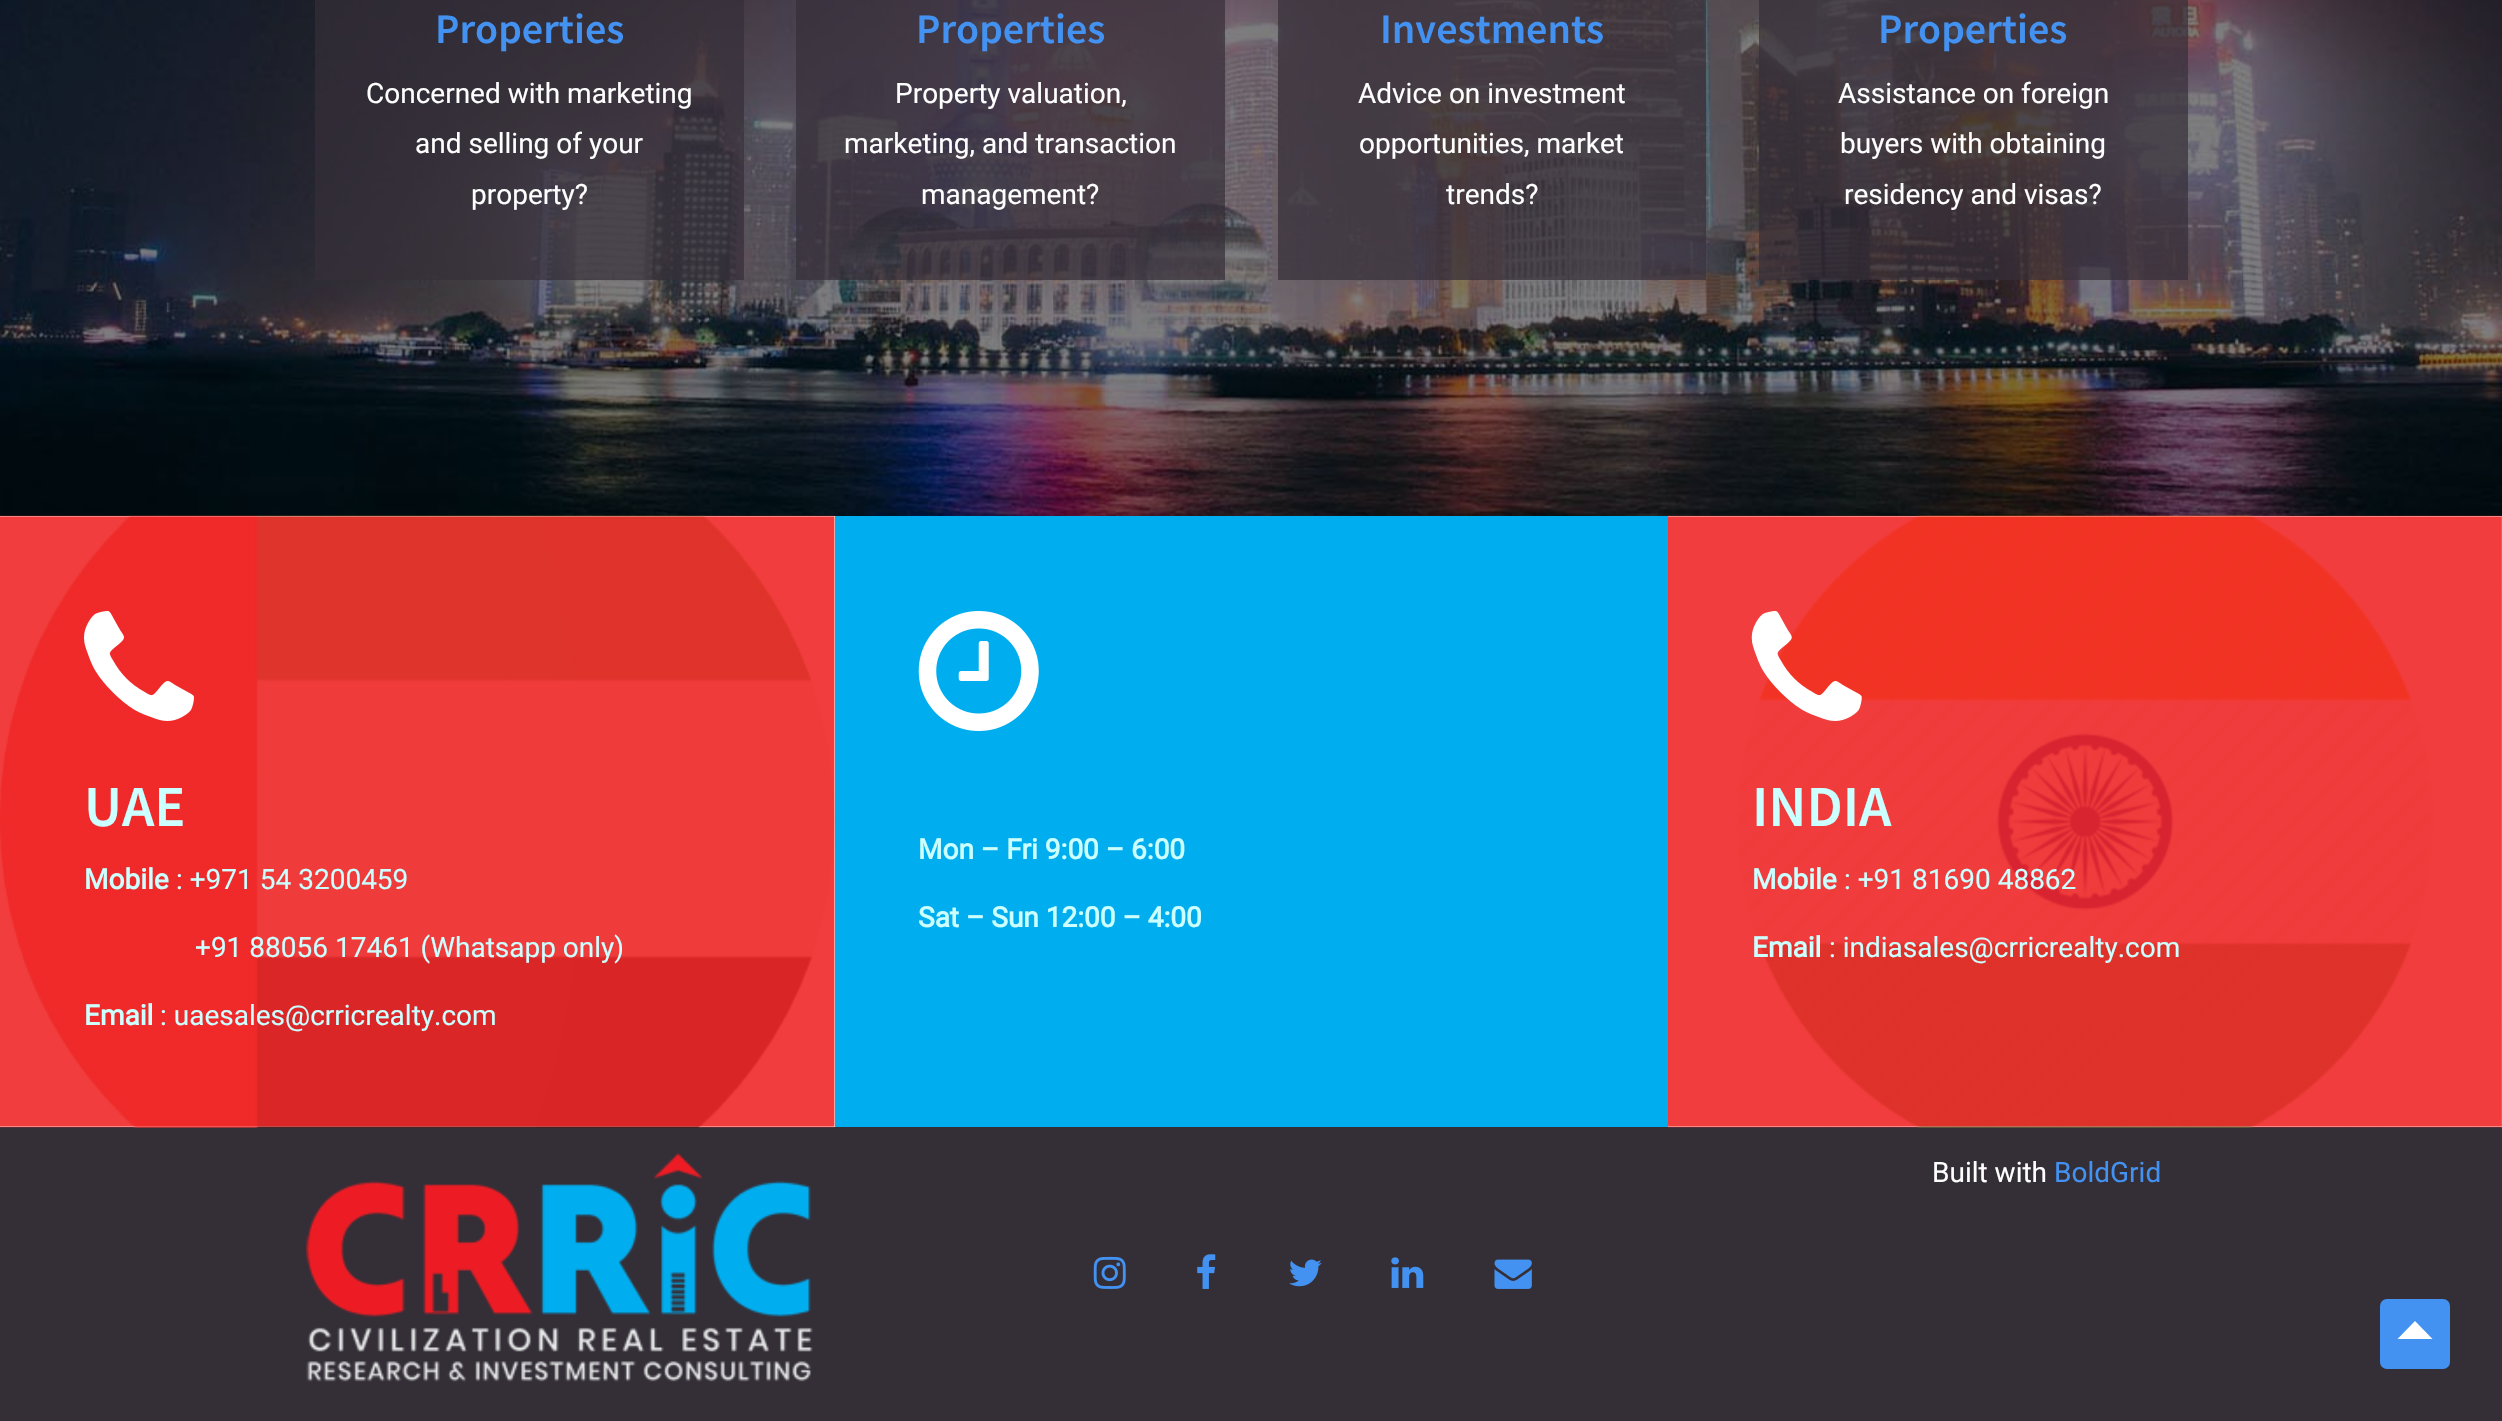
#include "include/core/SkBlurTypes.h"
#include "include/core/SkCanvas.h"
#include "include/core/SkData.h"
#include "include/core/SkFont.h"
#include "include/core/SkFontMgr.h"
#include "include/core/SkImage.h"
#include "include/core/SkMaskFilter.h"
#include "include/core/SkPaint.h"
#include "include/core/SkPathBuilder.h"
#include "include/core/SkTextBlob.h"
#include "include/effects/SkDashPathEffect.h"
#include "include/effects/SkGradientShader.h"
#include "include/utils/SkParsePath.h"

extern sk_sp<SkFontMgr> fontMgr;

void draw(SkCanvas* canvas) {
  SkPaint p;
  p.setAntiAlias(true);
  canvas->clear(SK_ColorWHITE);
  canvas->drawImageRect(SkImages::DeferredFromEncodedData(SkData::MakeFromFileName("images/1.png")), SkRect::MakeLTRB(0, 0, 2502, 516), SkSamplingOptions());
  p.setColor(SkColorSetARGB(179, 52, 46, 55));
  canvas->drawRect(SkRect::MakeLTRB(315, 0, 744, 280), p);
  canvas->drawRect(SkRect::MakeLTRB(796, 0, 1225, 280), p);
  canvas->drawRect(SkRect::MakeLTRB(1278, 0, 1706, 280), p);
  canvas->drawRect(SkRect::MakeLTRB(1759, 0, 2188, 280), p);
  p.setColor(SkColorSetRGB(52, 46, 55));
  canvas->drawRect(SkRect::MakeLTRB(0, 1127, 2502, 1421), p);
  canvas->drawImageRect(SkImages::DeferredFromEncodedData(SkData::MakeFromFileName("images/2.png")), SkRect::MakeLTRB(0, 515, 835, 1128), SkSamplingOptions());
  canvas->drawImageRect(SkImages::DeferredFromEncodedData(SkData::MakeFromFileName("images/3.png")), SkRect::MakeLTRB(84, 611, 194, 721), SkSamplingOptions());
  p.setColor(SkColorSetRGB(0, 174, 239));
  canvas->drawRect(SkRect::MakeLTRB(835, 516, 1668, 1127), p);
  canvas->drawImageRect(SkImages::DeferredFromEncodedData(SkData::MakeFromFileName("images/4.png")), SkRect::MakeLTRB(918, 611, 1039, 731), SkSamplingOptions());
  canvas->drawImageRect(SkImages::DeferredFromEncodedData(SkData::MakeFromFileName("images/5.png")), SkRect::MakeLTRB(1668, 515, 2502, 1128), SkSamplingOptions());
  canvas->drawImageRect(SkImages::DeferredFromEncodedData(SkData::MakeFromFileName("images/6.png")), SkRect::MakeLTRB(1751, 611, 1862, 721), SkSamplingOptions());
  canvas->drawImageRect(SkImages::DeferredFromEncodedData(SkData::MakeFromFileName("images/7.png")), SkRect::MakeLTRB(306, 1153, 813, 1382), SkSamplingOptions());
  canvas->drawImageRect(SkImages::DeferredFromEncodedData(SkData::MakeFromFileName("images/8.png")), SkRect::MakeLTRB(1093, 1256, 1126, 1289), SkSamplingOptions());
  canvas->drawImageRect(SkImages::DeferredFromEncodedData(SkData::MakeFromFileName("images/9.png")), SkRect::MakeLTRB(1197, 1254, 1216, 1289), SkSamplingOptions());
  canvas->drawImageRect(SkImages::DeferredFromEncodedData(SkData::MakeFromFileName("images/10.png")), SkRect::MakeLTRB(1289, 1259, 1322, 1287), SkSamplingOptions());
  canvas->drawImageRect(SkImages::DeferredFromEncodedData(SkData::MakeFromFileName("images/11.png")), SkRect::MakeLTRB(1391, 1257, 1424, 1288), SkSamplingOptions());
  canvas->drawImageRect(SkImages::DeferredFromEncodedData(SkData::MakeFromFileName("images/12.png")), SkRect::MakeLTRB(1494, 1259, 1532, 1289), SkSamplingOptions());
  p.setColor(SkColorSetRGB(67, 146, 241));
  canvas->drawRoundRect(SkRect::MakeLTRB(2380, 1299, 2450, 1369), 7, 7, p);
  p.setColor(SK_ColorWHITE);
  canvas->drawPath(SkPathBuilder().moveTo(2432.5f, 1339).lineTo(2397.5f, 1339).lineTo(2415, 1321).close().detach(), p);
  SkFont font1(fontMgr->matchFamilyStyle("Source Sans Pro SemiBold", SkFontStyle(600, SkFontStyle::kNormal_Width, SkFontStyle::kUpright_Slant)), 42);
  font1.setSubpixel(true);
  p.setColor(SkColorSetRGB(67, 146, 241));
  canvas->drawString("Properties", 435, 43, font1, p);
  SkFont font2(fontMgr->matchFamilyStyle("Roboto", SkFontStyle::Normal()), 28);
  font2.setSubpixel(true);
  p.setColor(SK_ColorWHITE);
  canvas->drawString("Concerned with marketing", 366, 103, font2, p);
  canvas->drawString("and selling of your", 415, 153, font2, p);
  canvas->drawString("property?", 471, 204, font2, p);
  p.setColor(SkColorSetRGB(67, 146, 241));
  canvas->drawString("Properties", 916, 43, font1, p);
  p.setColor(SK_ColorWHITE);
  canvas->drawString("Property valuation,", 895, 103, font2, p);
  canvas->drawString("marketing, and transaction", 844, 153, font2, p);
  canvas->drawString("management?", 921, 204, font2, p);
  p.setColor(SkColorSetRGB(67, 146, 241));
  canvas->drawString("Investments", 1380, 43, font1, p);
  p.setColor(SK_ColorWHITE);
  canvas->drawString("Advice on investment", 1358, 103, font2, p);
  canvas->drawString("opportunities, market", 1359, 153, font2, p);
  canvas->drawString("trends?", 1446, 204, font2, p);
  p.setColor(SkColorSetRGB(67, 146, 241));
  canvas->drawString("Properties", 1878, 43, font1, p);
  p.setColor(SK_ColorWHITE);
  canvas->drawString("Assistance on foreign", 1838, 103, font2, p);
  canvas->drawString("buyers with obtaining", 1840, 153, font2, p);
  canvas->drawString("residency and visas?", 1844, 204, font2, p);
  SkFont font3(fontMgr->matchFamilyStyle("Source Sans Pro SemiBold", SkFontStyle(600, SkFontStyle::kNormal_Width, SkFontStyle::kUpright_Slant)), 58);
  font3.setSubpixel(true);
  p.setColor(SkColorSetRGB(204, 255, 255));
  canvas->drawString("UAE", 84, 826, font3, p);
  SkFont font4(fontMgr->matchFamilyStyle("Roboto", SkFontStyle::Bold()), 28);
  font4.setSubpixel(true);
  canvas->drawString("Mobile", 84, 889, font4, p);
  canvas->drawString(": +971 54 3200459", 176, 889, font2, p);
  canvas->drawString("+91 88056 17461 (Whatsapp only)", 195, 957, font2, p);
  canvas->drawString("Email", 84, 1025, font4, p);
  canvas->drawString(": uaesales@crricrealty.com", 160, 1025, font2, p);
  canvas->drawString("Mon – Fri 9:00 – 6:00", 918, 859, font4, p);
  canvas->drawString("Sat – Sun 12:00 – 4:00", 918, 927, font4, p);
  canvas->drawString("INDIA", 1752, 826, font3, p);
  canvas->drawString("Mobile", 1752, 889, font4, p);
  canvas->drawString(": +91 81690 48862", 1844, 889, font2, p);
  canvas->drawString("Email", 1752, 957, font4, p);
  canvas->drawString(": indiasales@crricrealty.com", 1829, 957, font2, p);
  p.setColor(SK_ColorWHITE);
  canvas->drawString("Built with", 1932, 1182, font2, p);
  p.setColor(SkColorSetRGB(67, 146, 241));
  canvas->drawString("BoldGrid", 2054, 1182, font2, p);
}
